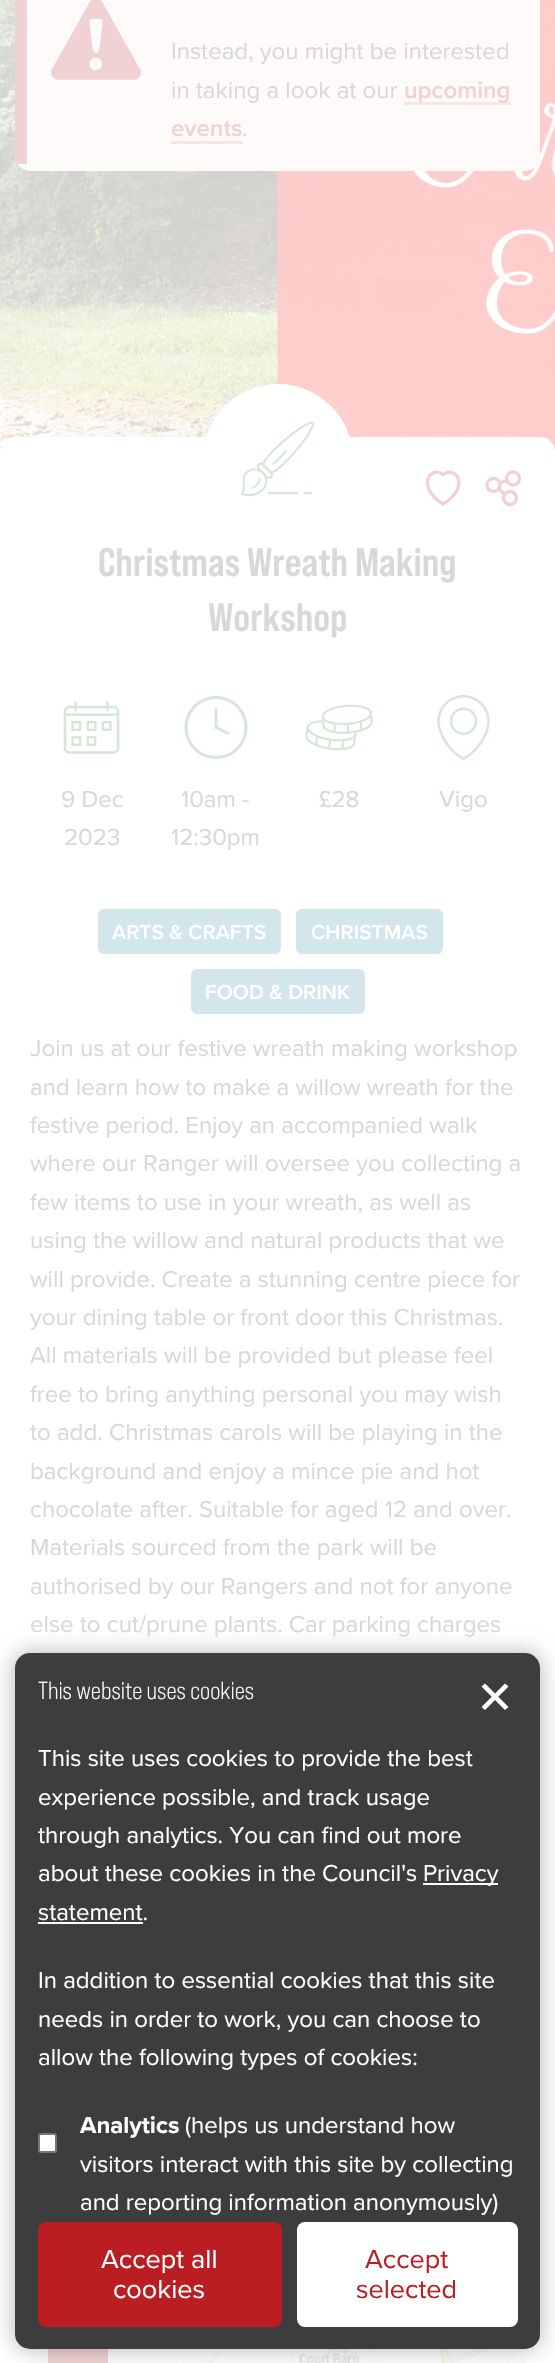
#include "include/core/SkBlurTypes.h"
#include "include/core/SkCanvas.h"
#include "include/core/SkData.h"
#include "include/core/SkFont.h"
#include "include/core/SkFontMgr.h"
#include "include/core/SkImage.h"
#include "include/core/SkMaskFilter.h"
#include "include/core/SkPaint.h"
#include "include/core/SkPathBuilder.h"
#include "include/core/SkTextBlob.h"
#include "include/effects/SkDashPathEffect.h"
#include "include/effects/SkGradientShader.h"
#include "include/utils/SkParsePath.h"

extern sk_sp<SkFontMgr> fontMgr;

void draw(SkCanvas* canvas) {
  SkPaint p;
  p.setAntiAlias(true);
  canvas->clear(SK_ColorWHITE);
  canvas->drawImageRect(SkImages::DeferredFromEncodedData(SkData::MakeFromFileName("images/1.png")), SkRect::MakeLTRB(0, 0, 555, 452), SkSamplingOptions());
  p.setColor(SkColorSetRGB(254, 250, 250));
  canvas->drawRoundRect(SkRect::MakeLTRB(15, -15, 540, 171), 15, 15, p);
  p.setColor(SkColorSetRGB(241, 210, 211));
  canvas->drawRect(SkRect::MakeLTRB(15, 0, 27, 164), p);
  canvas->drawImageRect(SkImages::DeferredFromEncodedData(SkData::MakeFromFileName("images/2.png")), SkRect::MakeLTRB(51, 0, 141, 80), SkSamplingOptions());
  p.setColor(SkColorSetRGB(248, 230, 231));
  canvas->drawRect(SkRect::MakeLTRB(404, 102, 510, 105), p);
  canvas->drawRect(SkRect::MakeLTRB(171, 141, 243, 144), p);
  p.setColor(SkColorSetARGB(51, 204, 204, 204));
  p.setMaskFilter(SkMaskFilter::MakeBlur(kNormal_SkBlurStyle, 11));
  canvas->drawRoundRect(SkRect::MakeLTRB(0, 452, 555, 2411), 15, 15, p);
  p.setMaskFilter(nullptr);
  p.setColor(SK_ColorWHITE);
  canvas->drawRoundRect(SkRect::MakeLTRB(0, 437, 555, 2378), 15, 15, p);
  canvas->drawCircle(278, 459, 75, p);
  canvas->drawImageRect(SkImages::DeferredFromEncodedData(SkData::MakeFromFileName("images/3.png")), SkRect::MakeLTRB(241, 421, 314, 497), SkSamplingOptions());
  p.setStyle(SkPaint::kStroke_Style);
  p.setStrokeWidth(3.3f);
  p.setStrokeCap(SkPaint::kRound_Cap);
  p.setStrokeJoin(SkPaint::kRound_Join);
  p.setColor(SkColorSetRGB(241, 210, 211));
  canvas->drawPath(SkPathBuilder().moveTo(443, 474.5f).cubicTo(431, 465, 415, 486.5f, 443, 504).cubicTo(471.5f, 486.5f, 455.5f, 465, 443, 474.5f).close().detach(), p);
  p.setStrokeCap(SkPaint::kButt_Cap);
  p.setStrokeJoin(SkPaint::kMiter_Join);
  canvas->drawCircle(493.5f, 485, 6.5f, p);
  canvas->drawCircle(510, 498, 6.5f, p);
  canvas->drawCircle(513, 478.5f, 6.5f, p);
  p.setStrokeCap(SkPaint::kRound_Cap);
  p.setStrokeJoin(SkPaint::kRound_Join);
  canvas->drawPath(SkPathBuilder().moveTo(500, 490).lineTo(503, 493).moveTo(500, 483).lineTo(506.5f, 480.5f).detach(), p);
  canvas->drawImageRect(SkImages::DeferredFromEncodedData(SkData::MakeFromFileName("images/4.png")), SkRect::MakeLTRB(63, 701, 120, 754), SkSamplingOptions());
  canvas->drawImageRect(SkImages::DeferredFromEncodedData(SkData::MakeFromFileName("images/5.png")), SkRect::MakeLTRB(184, 696, 248, 759), SkSamplingOptions());
  canvas->drawImageRect(SkImages::DeferredFromEncodedData(SkData::MakeFromFileName("images/6.png")), SkRect::MakeLTRB(305, 704, 373, 751), SkSamplingOptions());
  canvas->drawImageRect(SkImages::DeferredFromEncodedData(SkData::MakeFromFileName("images/7.png")), SkRect::MakeLTRB(437, 695, 490, 760), SkSamplingOptions());
  p.setStyle(SkPaint::kFill_Style);
  p.setColor(SkColorSetRGB(210, 230, 235));
  canvas->drawRoundRect(SkRect::MakeLTRB(98, 909, 281, 954), 6, 6, p);
  canvas->drawRoundRect(SkRect::MakeLTRB(296, 909, 443, 954), 6, 6, p);
  canvas->drawRoundRect(SkRect::MakeLTRB(191, 969, 365, 1014), 6, 6, p);
  canvas->drawImageRect(SkImages::DeferredFromEncodedData(SkData::MakeFromFileName("images/8.png")), SkRect::MakeLTRB(30, 2349, 297, 2363), SkSamplingOptions());
  p.setStyle(SkPaint::kStroke_Style);
  p.setStrokeWidth(3);
  p.setStrokeCap(SkPaint::kButt_Cap);
  p.setStrokeJoin(SkPaint::kMiter_Join);
  p.setColor(SkColorSetARGB(102, 255, 255, 255));
  canvas->drawRect(SkRect::MakeLTRB(46.5f, 2275.5f, 109.5f, 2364.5f), p);
  p.setStyle(SkPaint::kFill_Style);
  p.setColor(SkColorSetRGB(241, 210, 211));
  canvas->drawRect(SkRect::MakeLTRB(48, 2349, 108, 2363), p);
  canvas->drawImageRect(SkImages::DeferredFromEncodedData(SkData::MakeFromFileName("images/9.png")), SkRect::MakeLTRB(297, 2349, 525, 2363), SkSamplingOptions());
  p.setColor(SkColorSetARGB(77, 0, 0, 0));
  p.setMaskFilter(SkMaskFilter::MakeBlur(kNormal_SkBlurStyle, 11));
  canvas->drawRoundRect(SkRect::MakeLTRB(15, 1653, 540, 2349), 15, 15, p);
  p.setMaskFilter(nullptr);
  p.setColor(SkColorSetRGB(61, 61, 61));
  canvas->drawRoundRect(SkRect::MakeLTRB(15, 1653, 540, 2349), 15, 15, p);
  p.setColor(SK_ColorWHITE);
  canvas->drawRect(SkRect::MakeLTRB(423, 1883, 498, 1885), p);
  canvas->drawRect(SkRect::MakeLTRB(38, 1922, 143, 1924), p);
  canvas->drawRoundRect(SkRect::MakeLTRB(39, 2134, 56, 2152), 2, 2, p);
  p.setStyle(SkPaint::kStroke_Style);
  p.setStrokeWidth(2);
  p.setColor(SkColorSetRGB(118, 118, 118));
  canvas->drawRoundRect(SkRect::MakeLTRB(39, 2134, 56, 2152), 2, 2, p);
  p.setStyle(SkPaint::kFill_Style);
  p.setColor(SkColorSetRGB(186, 30, 35));
  canvas->drawRoundRect(SkRect::MakeLTRB(38, 2222, 282, 2327), 8, 8, p);
  p.setColor(SK_ColorWHITE);
  canvas->drawRoundRect(SkRect::MakeLTRB(297, 2222, 518, 2327), 8, 8, p);
  canvas->drawPath(SkPathBuilder().moveTo(481.5f, 1707).lineTo(505, 1683.5f).lineTo(508.5f, 1686.5f).lineTo(485, 1710).close().detach(), p);
  canvas->drawPath(SkPathBuilder().moveTo(485, 1683.5f).lineTo(508.5f, 1707).lineTo(505, 1710).lineTo(481.5f, 1686.5f).close().detach(), p);
  SkFont font1(fontMgr->matchFamilyStyle("Proxima Nova", SkFontStyle::Normal()), 24);
  font1.setSubpixel(true);
  p.setColor(SkColorSetRGB(216, 216, 216));
  canvas->drawString("Instead, you might be interested", 171, 59, font1, p);
  canvas->drawString("in taking a look at our", 171, 98, font1, p);
  SkFont font2(fontMgr->matchFamilyStyle("Proxima Nova", SkFontStyle(600, SkFontStyle::kNormal_Width, SkFontStyle::kUpright_Slant)), 24);
  font2.setSubpixel(true);
  p.setColor(SkColorSetRGB(241, 210, 211));
  canvas->drawString("upcoming", 404, 98, font2, p);
  canvas->drawString("events", 171, 136, font2, p);
  p.setColor(SkColorSetRGB(216, 216, 216));
  canvas->drawString(".", 242, 136, font1, p);
  SkFont font3(fontMgr->matchFamilyStyle("Bebas Neue", SkFontStyle::Bold()), 39.75f);
  font3.setSubpixel(true);
  canvas->drawString("Christmas Wreath Making", 98, 576, font3, p);
  canvas->drawString("Workshop", 208, 631, font3, p);
  canvas->drawString("9 Dec", 61, 807, font1, p);
  canvas->drawString("2023", 64, 845, font1, p);
  canvas->drawString("10am -", 181, 807, font1, p);
  canvas->drawString("12:30pm", 171, 845, font1, p);
  canvas->drawString("£28", 319, 807, font1, p);
  canvas->drawString("Vigo", 439, 807, font1, p);
  SkFont font4(fontMgr->matchFamilyStyle("Proxima Nova", SkFontStyle(600, SkFontStyle::kNormal_Width, SkFontStyle::kUpright_Slant)), 21);
  font4.setSubpixel(true);
  p.setColor(SK_ColorWHITE);
  canvas->drawString("ARTS & CRAFTS", 112, 939, font4, p);
  canvas->drawString("CHRISTMAS", 311, 939, font4, p);
  canvas->drawString("FOOD & DRINK", 205, 999, font4, p);
  p.setColor(SkColorSetRGB(216, 216, 216));
  canvas->drawString("Join us at our festive wreath making workshop", 30, 1056, font1, p);
  canvas->drawString("and learn how to make a willow wreath for the", 30, 1095, font1, p);
  canvas->drawString("festive period. Enjoy an accompanied walk", 30, 1133, font1, p);
  canvas->drawString("where our Ranger will oversee you collecting a", 30, 1171, font1, p);
  canvas->drawString("few items to use in your wreath, as well as", 30, 1210, font1, p);
  canvas->drawString("using the willow and natural products that we", 30, 1248, font1, p);
  canvas->drawString("will provide. Create a stunning centre piece for", 30, 1287, font1, p);
  canvas->drawString("your dining table or front door this Christmas.", 30, 1325, font1, p);
  canvas->drawString("All materials will be provided but please feel", 30, 1363, font1, p);
  canvas->drawString("free to bring anything personal you may wish", 30, 1402, font1, p);
  canvas->drawString("to add. Christmas carols will be playing in the", 30, 1440, font1, p);
  canvas->drawString("background and enjoy a mince pie and hot", 30, 1479, font1, p);
  canvas->drawString("chocolate after. Suitable for aged 12 and over.", 30, 1517, font1, p);
  canvas->drawString("Materials sourced from the park will be", 30, 1555, font1, p);
  canvas->drawString("authorised by our Rangers and not for anyone", 30, 1594, font1, p);
  canvas->drawString("else to cut/prune plants. Car parking charges", 30, 1632, font1, p);
  SkFont font5(fontMgr->matchFamilyStyle("Bebas Neue", SkFontStyle::Normal()), 24.5f);
  font5.setSubpixel(true);
  p.setColor(SK_ColorWHITE);
  canvas->drawString("This website uses cookies", 38, 1699, font5, p);
  canvas->drawString("This site uses cookies to provide the best", 38, 1766, font1, p);
  canvas->drawString("experience possible, and track usage", 38, 1805, font1, p);
  canvas->drawString("through analytics. You can find out more", 38, 1843, font1, p);
  canvas->drawString("about these cookies in the Council's", 38, 1881, font1, p);
  canvas->drawString("Privacy", 423, 1881, font1, p);
  canvas->drawString("statement.", 38, 1920, font1, p);
  canvas->drawString("In addition to essential cookies that this site", 38, 1988, font1, p);
  canvas->drawString("needs in order to work, you can choose to", 38, 2027, font1, p);
  canvas->drawString("allow the following types of cookies:", 38, 2065, font1, p);
  SkFont font6(fontMgr->matchFamilyStyle("Proxima Nova", SkFontStyle::Bold()), 24);
  font6.setSubpixel(true);
  canvas->drawString("Analytics", 80, 2133, font6, p);
  canvas->drawString("(helps us understand how", 185, 2133, font1, p);
  canvas->drawString("visitors interact with this site by collecting", 80, 2172, font1, p);
  canvas->drawString("and reporting information anonymously)", 80, 2210, font1, p);
  SkFont font7(fontMgr->matchFamilyStyle("Proxima Nova", SkFontStyle::Normal()), 27);
  font7.setSubpixel(true);
  canvas->drawString("Accept all", 101, 2268, font7, p);
  canvas->drawString("cookies", 113, 2298, font7, p);
  p.setColor(SkColorSetRGB(186, 30, 35));
  canvas->drawString("Accept", 365, 2268, font7, p);
  canvas->drawString("selected", 356, 2298, font7, p);
}
